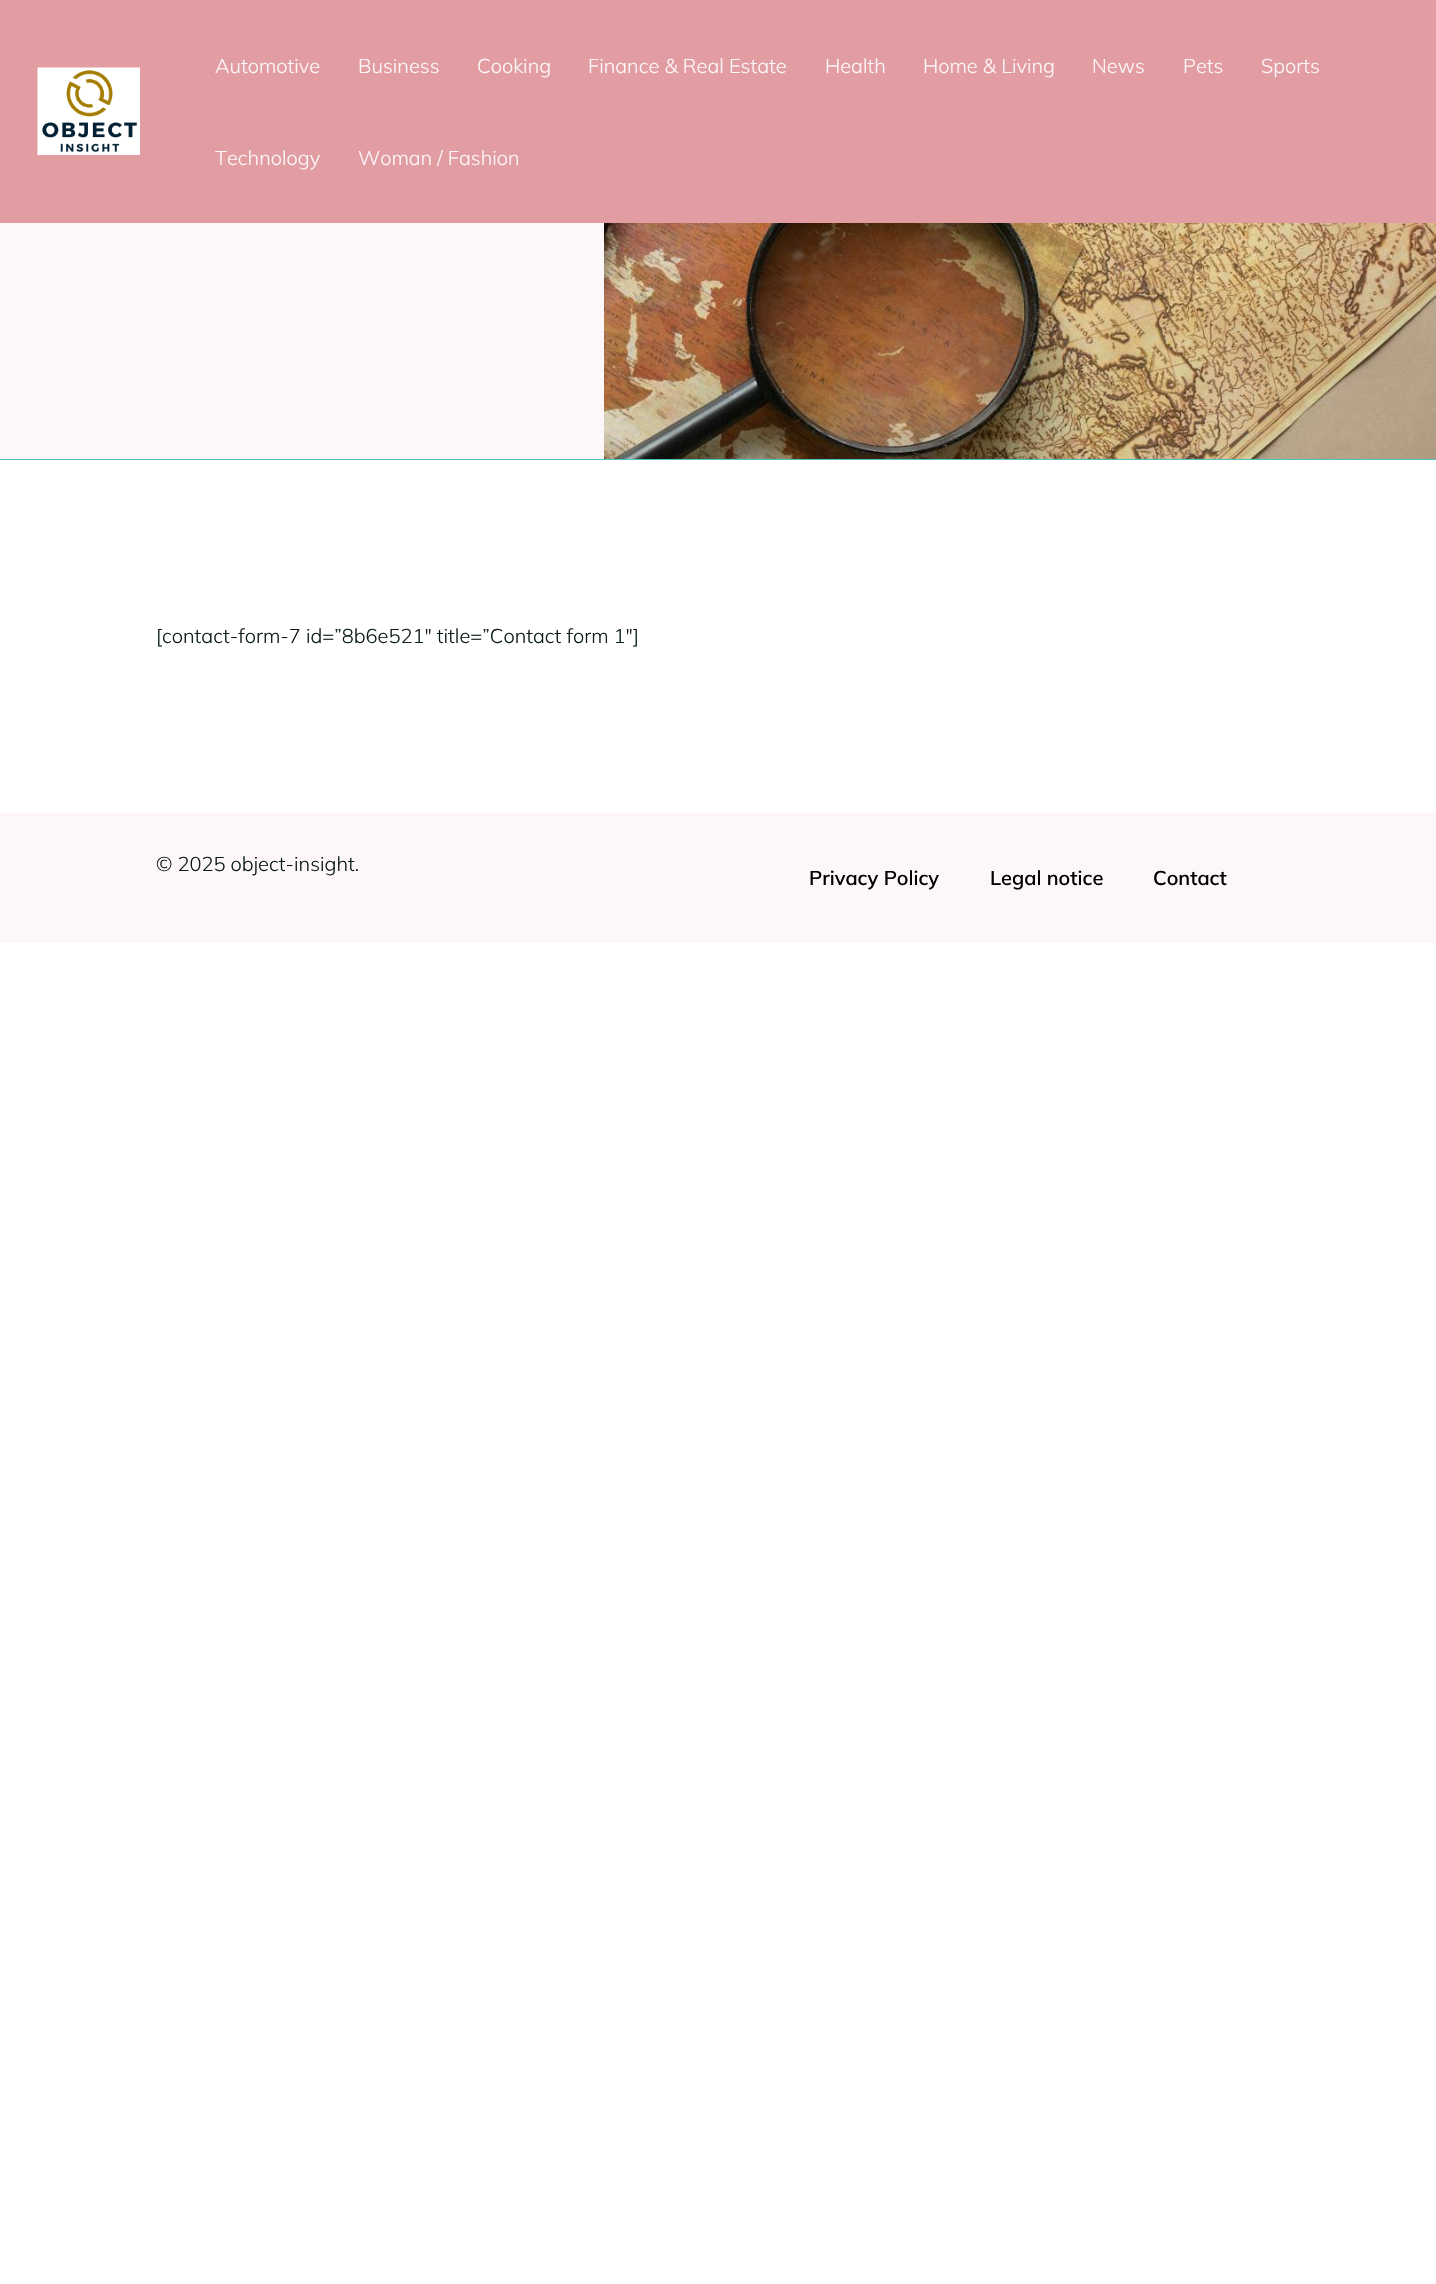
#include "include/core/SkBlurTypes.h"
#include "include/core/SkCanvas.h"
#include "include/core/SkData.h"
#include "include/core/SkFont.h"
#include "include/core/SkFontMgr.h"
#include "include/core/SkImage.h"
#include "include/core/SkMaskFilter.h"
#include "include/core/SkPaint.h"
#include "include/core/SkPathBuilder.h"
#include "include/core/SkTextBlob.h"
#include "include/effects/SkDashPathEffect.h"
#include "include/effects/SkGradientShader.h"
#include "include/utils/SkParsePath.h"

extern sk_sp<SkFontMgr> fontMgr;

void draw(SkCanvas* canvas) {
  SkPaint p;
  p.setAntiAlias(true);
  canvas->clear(SK_ColorWHITE);
  p.setColor(SkColorSetRGB(225, 157, 161));
  canvas->drawRect(SkRect::MakeLTRB(0, 0, 1436, 223), p);
  canvas->drawImageRect(SkImages::DeferredFromEncodedData(SkData::MakeFromFileName("images/1.png")), SkRect::MakeLTRB(37, 67, 140, 155), SkSamplingOptions());
  canvas->drawImageRect(SkImages::DeferredFromEncodedData(SkData::MakeFromFileName("images/2.png")), SkRect::MakeLTRB(604, 223, 1436, 459), SkSamplingOptions());
  p.setColor(SkColorSetRGB(77, 194, 194));
  canvas->drawRect(SkRect::MakeLTRB(0, 459, 1436, 460), p);
  p.setColor(SkColorSetRGB(253, 247, 250));
  canvas->drawRect(SkRect::MakeLTRB(0, 223, 604, 459), p);
  canvas->drawRect(SkRect::MakeLTRB(0, 813, 1436, 943), p);
  SkFont font1(fontMgr->matchFamilyStyle("Mulish", SkFontStyle(300, SkFontStyle::kNormal_Width, SkFontStyle::kUpright_Slant)), 20);
  font1.setSubpixel(true);
  canvas->drawString("Automotive", 215, 73, font1, p);
  canvas->drawString("Business", 358, 73, font1, p);
  canvas->drawString("Cooking", 477, 73, font1, p);
  canvas->drawString("Finance & Real Estate", 588, 73, font1, p);
  canvas->drawString("Health", 825, 73, font1, p);
  canvas->drawString("Home & Living", 923, 73, font1, p);
  canvas->drawString("News", 1092, 73, font1, p);
  canvas->drawString("Pets", 1183, 73, font1, p);
  canvas->drawString("Sports", 1261, 73, font1, p);
  canvas->drawString("Technology", 215, 165, font1, p);
  canvas->drawString("Woman / Fashion", 358, 165, font1, p);
  p.setColor(SkColorSetRGB(10, 25, 25));
  canvas->drawString("[contact-form-7 id=”8b6e521″ title=”Contact form 1″]", 156, 643, font1, p);
  canvas->drawString("© 2025 object-insight.", 156, 871, font1, p);
  SkFont font2(fontMgr->matchFamilyStyle("Mulish", SkFontStyle(600, SkFontStyle::kNormal_Width, SkFontStyle::kUpright_Slant)), 20);
  font2.setSubpixel(true);
  p.setColor(SK_ColorBLACK);
  canvas->drawString("Privacy Policy", 809, 885, font2, p);
  canvas->drawString("Legal notice", 990, 885, font2, p);
  canvas->drawString("Contact", 1153, 885, font2, p);
}
